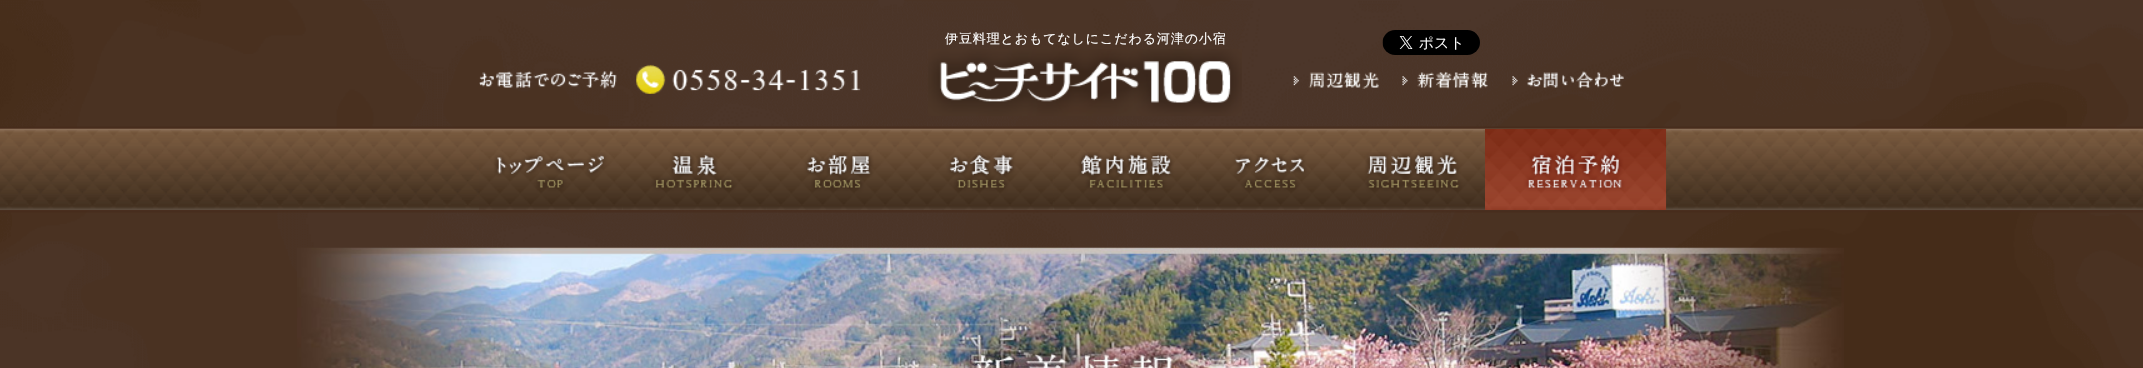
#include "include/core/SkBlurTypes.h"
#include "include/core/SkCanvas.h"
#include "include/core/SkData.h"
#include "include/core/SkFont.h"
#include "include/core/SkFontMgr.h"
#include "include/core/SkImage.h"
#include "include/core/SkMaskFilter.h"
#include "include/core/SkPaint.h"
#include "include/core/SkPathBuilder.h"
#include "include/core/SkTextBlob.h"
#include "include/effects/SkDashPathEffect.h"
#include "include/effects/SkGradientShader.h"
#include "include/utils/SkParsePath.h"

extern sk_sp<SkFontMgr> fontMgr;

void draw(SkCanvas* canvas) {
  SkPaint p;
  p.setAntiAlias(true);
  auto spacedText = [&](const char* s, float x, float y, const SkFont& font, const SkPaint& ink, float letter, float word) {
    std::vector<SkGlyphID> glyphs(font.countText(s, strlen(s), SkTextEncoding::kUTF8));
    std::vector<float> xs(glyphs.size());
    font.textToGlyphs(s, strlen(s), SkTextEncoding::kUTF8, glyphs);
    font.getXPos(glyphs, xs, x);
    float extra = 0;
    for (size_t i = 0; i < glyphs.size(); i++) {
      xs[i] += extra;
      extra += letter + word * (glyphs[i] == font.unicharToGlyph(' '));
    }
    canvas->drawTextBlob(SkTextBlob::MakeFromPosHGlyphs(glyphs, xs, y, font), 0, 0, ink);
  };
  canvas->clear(SK_ColorWHITE);
  canvas->drawImageRect(SkImages::DeferredFromEncodedData(SkData::MakeFromFileName("images/1.png")), SkRect::MakeLTRB(0, 0, 2143, 368), SkSamplingOptions());
  canvas->drawImageRect(SkImages::DeferredFromEncodedData(SkData::MakeFromFileName("images/2.png")), SkRect::MakeLTRB(928, 49, 1242, 116), SkSamplingOptions());
  canvas->drawImageRect(SkImages::DeferredFromEncodedData(SkData::MakeFromFileName("images/3.png")), SkRect::MakeLTRB(1382, 30, 1480, 55), SkSamplingOptions());
  canvas->drawImageRect(SkImages::DeferredFromEncodedData(SkData::MakeFromFileName("images/4.png")), SkRect::MakeLTRB(1293, 72, 1379, 89), SkSamplingOptions());
  canvas->drawImageRect(SkImages::DeferredFromEncodedData(SkData::MakeFromFileName("images/5.png")), SkRect::MakeLTRB(1402, 71, 1488, 89), SkSamplingOptions());
  canvas->drawImageRect(SkImages::DeferredFromEncodedData(SkData::MakeFromFileName("images/6.png")), SkRect::MakeLTRB(1512, 71, 1624, 89), SkSamplingOptions());
  canvas->drawImageRect(SkImages::DeferredFromEncodedData(SkData::MakeFromFileName("images/7.png")), SkRect::MakeLTRB(479, 64, 861, 94), SkSamplingOptions());
  canvas->drawImageRect(SkImages::DeferredFromEncodedData(SkData::MakeFromFileName("images/8.png")), SkRect::MakeLTRB(0, 126, 2143, 213), SkSamplingOptions());
  canvas->drawImageRect(SkImages::DeferredFromEncodedData(SkData::MakeFromFileName("images/9.png")), SkRect::MakeLTRB(479, 152, 623, 210), SkSamplingOptions());
  canvas->drawImageRect(SkImages::DeferredFromEncodedData(SkData::MakeFromFileName("images/10.png")), SkRect::MakeLTRB(623, 152, 766, 210), SkSamplingOptions());
  canvas->drawImageRect(SkImages::DeferredFromEncodedData(SkData::MakeFromFileName("images/11.png")), SkRect::MakeLTRB(766, 152, 910, 210), SkSamplingOptions());
  canvas->drawImageRect(SkImages::DeferredFromEncodedData(SkData::MakeFromFileName("images/12.png")), SkRect::MakeLTRB(910, 152, 1053, 210), SkSamplingOptions());
  canvas->drawImageRect(SkImages::DeferredFromEncodedData(SkData::MakeFromFileName("images/13.png")), SkRect::MakeLTRB(1054, 152, 1197, 210), SkSamplingOptions());
  canvas->drawImageRect(SkImages::DeferredFromEncodedData(SkData::MakeFromFileName("images/14.png")), SkRect::MakeLTRB(1198, 154, 1341, 210), SkSamplingOptions());
  canvas->drawImageRect(SkImages::DeferredFromEncodedData(SkData::MakeFromFileName("images/15.png")), SkRect::MakeLTRB(1341, 152, 1485, 210), SkSamplingOptions());
  canvas->drawImageRect(SkImages::DeferredFromEncodedData(SkData::MakeFromFileName("images/16.png")), SkRect::MakeLTRB(1485, 129, 1667, 210), SkSamplingOptions());
  canvas->drawImageRect(SkImages::DeferredFromEncodedData(SkData::MakeFromFileName("images/17.png")), SkRect::MakeLTRB(297, 247, 1844, 368), SkSamplingOptions());
  SkFont font1(fontMgr->matchFamilyStyle("WenQuanYi Zen Hei", SkFontStyle(500, SkFontStyle::kNormal_Width, SkFontStyle::kUpright_Slant)), 13);
  font1.setSubpixel(true);
  p.setColor(SK_ColorWHITE);
  spacedText("伊豆料理とおもてなしにこだわる河津の小宿", 945, 43, font1, p, 0.9f, 0);
}
